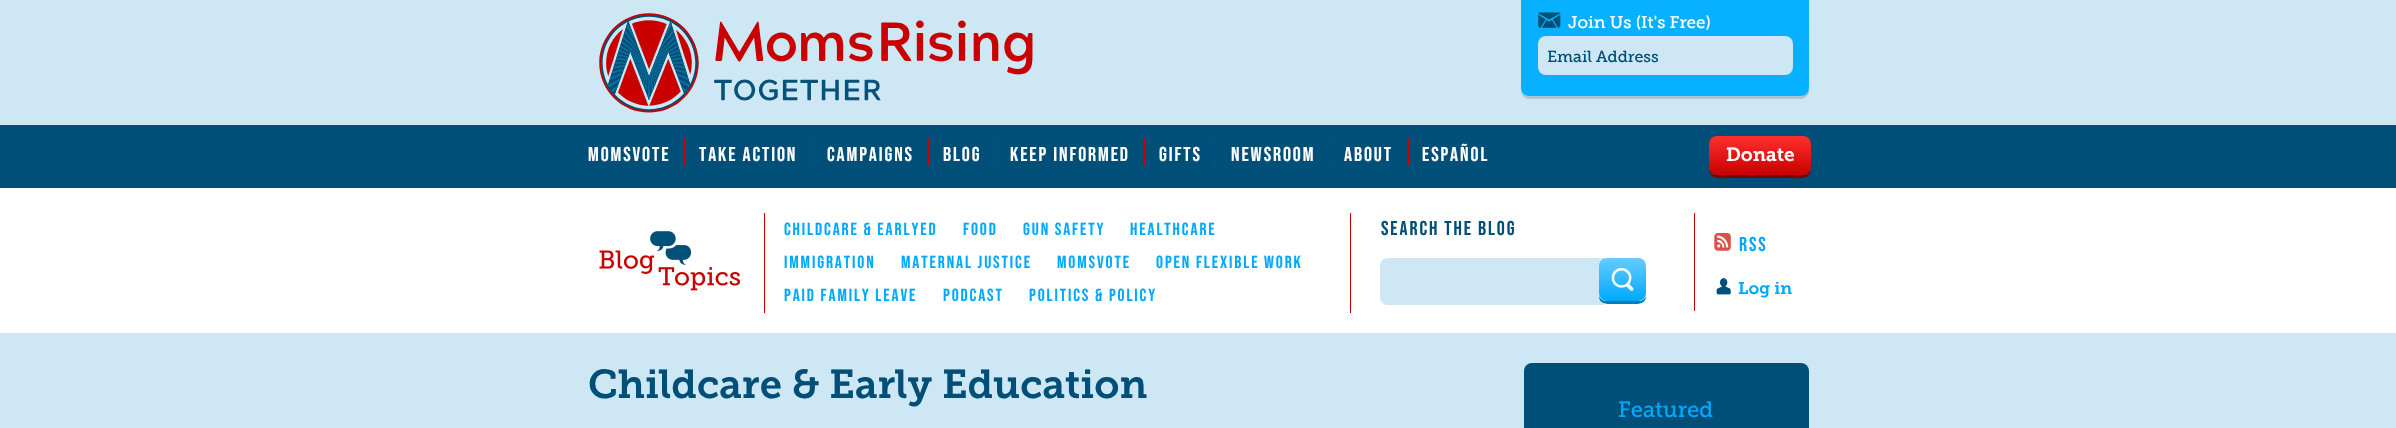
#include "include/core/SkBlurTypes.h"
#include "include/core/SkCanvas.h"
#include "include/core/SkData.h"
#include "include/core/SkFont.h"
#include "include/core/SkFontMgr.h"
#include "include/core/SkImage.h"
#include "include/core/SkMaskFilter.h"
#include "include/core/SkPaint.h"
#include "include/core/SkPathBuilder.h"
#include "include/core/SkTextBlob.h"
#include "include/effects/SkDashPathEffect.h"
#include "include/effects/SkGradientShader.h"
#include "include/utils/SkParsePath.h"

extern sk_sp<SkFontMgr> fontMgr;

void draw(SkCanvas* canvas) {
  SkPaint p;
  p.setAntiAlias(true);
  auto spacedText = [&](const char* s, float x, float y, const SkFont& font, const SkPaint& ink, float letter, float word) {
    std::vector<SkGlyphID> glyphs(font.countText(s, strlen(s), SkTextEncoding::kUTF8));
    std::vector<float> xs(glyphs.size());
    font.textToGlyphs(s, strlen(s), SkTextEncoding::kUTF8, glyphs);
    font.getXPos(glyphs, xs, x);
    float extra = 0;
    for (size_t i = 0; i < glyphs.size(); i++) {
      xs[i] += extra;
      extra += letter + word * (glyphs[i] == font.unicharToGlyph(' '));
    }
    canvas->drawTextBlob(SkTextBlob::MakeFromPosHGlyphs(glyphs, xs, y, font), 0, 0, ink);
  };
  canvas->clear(SkColorSetRGB(205, 232, 244));
  canvas->drawImageRect(SkImages::DeferredFromEncodedData(SkData::MakeFromFileName("images/1.png")), SkRect::MakeLTRB(599, 13, 1033, 113), SkSamplingOptions());
  p.setColor(SkColorSetRGB(174, 197, 207));
  canvas->drawPath(SkPathBuilder().moveTo(1521, 3).lineTo(1521, 91).cubicTo(1521, 95, 1525, 99, 1529, 99).lineTo(1801, 99).cubicTo(1805, 99, 1809, 95, 1809, 91).lineTo(1809, 3).lineTo(1809, 89).cubicTo(1809, 93, 1805, 96, 1801, 96).lineTo(1529, 96).cubicTo(1525, 96, 1521, 93, 1521, 89).close().detach(), p);
  p.setColor(SkColorSetRGB(8, 177, 255));
  canvas->drawPath(SkPathBuilder().moveTo(1521, 0).lineTo(1809, 0).lineTo(1809, 88).cubicTo(1809, 92.5f, 1805.5f, 96, 1801, 96).lineTo(1529, 96).cubicTo(1524.5f, 96, 1521, 92.5f, 1521, 88).close().detach(), p);
  canvas->drawImageRect(SkImages::DeferredFromEncodedData(SkData::MakeFromFileName("images/2.png")), SkRect::MakeLTRB(1538, 12, 1561, 28), SkSamplingOptions());
  p.setColor(SkColorSetRGB(205, 232, 244));
  canvas->drawRoundRect(SkRect::MakeLTRB(1538, 36, 1793, 75), 8, 8, p);
  p.setColor(SK_ColorWHITE);
  canvas->drawRect(SkRect::MakeLTRB(0, 188, 2396, 333), p);
  p.setColor(SkColorSetRGB(0, 79, 120));
  canvas->drawRect(SkRect::MakeLTRB(0, 125, 2396, 188), p);
  p.setColor(SkColorSetRGB(200, 0, 0));
  canvas->drawRect(SkRect::MakeLTRB(684, 138, 685, 165), p);
  canvas->drawRect(SkRect::MakeLTRB(811, 138, 812, 165), p);
  canvas->drawRect(SkRect::MakeLTRB(928, 138, 929, 165), p);
  canvas->drawRect(SkRect::MakeLTRB(995, 138, 996, 165), p);
  canvas->drawRect(SkRect::MakeLTRB(1144, 138, 1145, 165), p);
  canvas->drawRect(SkRect::MakeLTRB(1215, 138, 1216, 165), p);
  canvas->drawRect(SkRect::MakeLTRB(1329, 138, 1330, 165), p);
  canvas->drawRect(SkRect::MakeLTRB(1408, 138, 1409, 165), p);
  p.setColor(SkColorSetRGB(124, 0, 0));
  canvas->drawPath(SkPathBuilder().moveTo(1709, 169).cubicTo(1709, 181, 1724, 178, 1731, 178).lineTo(1789, 178).cubicTo(1796, 178, 1811, 181, 1811, 169).cubicTo(1810, 173, 1807, 175, 1804, 175).lineTo(1716, 175).cubicTo(1713, 175, 1710, 173, 1709, 169).close().detach(), p);
  {
    const SkColor colors[] = {SkColorSetRGB(255, 47, 47), SkColorSetRGB(200, 0, 0)};
    const float stops[] = {0, 1};
    const SkPoint ends[] = {{1760, 136}, {1760, 175}};
    p.setShader(SkGradientShader::MakeLinear(ends, colors, stops, 2, SkTileMode::kClamp));
    p.setAlpha(255);
  }
  canvas->drawRoundRect(SkRect::MakeLTRB(1709, 136, 1811, 175), 8, 8, p);
  canvas->drawImageRect(SkImages::DeferredFromEncodedData(SkData::MakeFromFileName("images/3.png")), SkRect::MakeLTRB(599, 231, 740, 291), SkSamplingOptions());
  p.setShader(nullptr);
  p.setColor(SkColorSetRGB(200, 0, 0));
  canvas->drawRect(SkRect::MakeLTRB(1350, 213, 1351, 313), p);
  canvas->drawRect(SkRect::MakeLTRB(764, 213, 765, 313), p);
  canvas->drawImageRect(SkImages::DeferredFromEncodedData(SkData::MakeFromFileName("images/4.png")), SkRect::MakeLTRB(1714, 233, 1731, 251), SkSamplingOptions());
  canvas->drawRect(SkRect::MakeLTRB(1694, 213, 1695, 311), p);
  canvas->drawImageRect(SkImages::DeferredFromEncodedData(SkData::MakeFromFileName("images/5.png")), SkRect::MakeLTRB(1716, 278, 1731, 295), SkSamplingOptions());
  p.setColor(SkColorSetRGB(205, 232, 244));
  canvas->drawPath(SkPathBuilder().moveTo(1388, 258).lineTo(1604, 258).lineTo(1604, 305).lineTo(1388, 305).cubicTo(1383.5f, 305, 1380, 301.5f, 1380, 297).lineTo(1380, 266).cubicTo(1380, 261.5f, 1383.5f, 258, 1388, 258).close().detach(), p);
  p.setColor(SkColorSetRGB(0, 128, 186));
  canvas->drawPath(SkPathBuilder().moveTo(1599, 296).cubicTo(1599, 304, 1606, 304, 1612, 304).lineTo(1633, 304).cubicTo(1639, 304, 1646, 304, 1646, 296).cubicTo(1645, 299, 1642, 301, 1639, 301).lineTo(1606, 301).cubicTo(1603, 301, 1600, 299, 1599, 296).close().detach(), p);
  {
    const SkColor colors[] = {SkColorSetRGB(102, 203, 255), SkColorSetRGB(0, 169, 255)};
    const float stops[] = {0, 1};
    const SkPoint ends[] = {{1623, 258}, {1623, 301}};
    p.setShader(SkGradientShader::MakeLinear(ends, colors, stops, 2, SkTileMode::kClamp));
    p.setAlpha(255);
  }
  canvas->drawRoundRect(SkRect::MakeLTRB(1599, 258, 1646, 301), 8, 8, p);
  canvas->drawImageRect(SkImages::DeferredFromEncodedData(SkData::MakeFromFileName("images/6.png")), SkRect::MakeLTRB(1611, 268, 1634, 291), SkSamplingOptions());
  p.setShader(nullptr);
  p.setColor(SkColorSetRGB(0, 79, 120));
  canvas->drawRoundRect(SkRect::MakeLTRB(1524, 363, 1809, 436), 8, 8, p);
  SkFont font1(fontMgr->matchFamilyStyle("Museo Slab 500", SkFontStyle::Normal()), 17);
  font1.setSubpixel(true);
  p.setColor(SK_ColorWHITE);
  canvas->drawString("Join Us (It's Free)", 1568, 28, font1, p);
  canvas->save();
  canvas->clipRect(SkRect::MakeLTRB(1548, 46, 1783, 65));
  SkFont font2(fontMgr->matchFamilyStyle("Museo Slab 500", SkFontStyle::Normal()), 16);
  font2.setSubpixel(true);
  p.setColor(SkColorSetRGB(0, 79, 120));
  canvas->drawString("Email Address", 1547, 62, font2, p);
  canvas->restore();
  SkFont font3(fontMgr->matchFamilyStyle("Bebas Neue", SkFontStyle::Normal()), 20);
  font3.setSubpixel(true);
  p.setColor(SK_ColorWHITE);
  spacedText("MOMSVOTE", 588, 161, font3, p, 1.9f, 0);
  spacedText("TAKE ACTION", 699, 161, font3, p, 1.9f, 0);
  spacedText("CAMPAIGNS", 827, 161, font3, p, 1.9f, 0);
  spacedText("BLOG", 943, 161, font3, p, 1.9f, 0);
  spacedText("KEEP INFORMED", 1010, 161, font3, p, 1.9f, 0);
  spacedText("GIFTS", 1159, 161, font3, p, 1.9f, 0);
  spacedText("NEWSROOM", 1231, 161, font3, p, 1.9f, 0);
  spacedText("ABOUT", 1344, 161, font3, p, 1.9f, 0);
  spacedText("ESPAÑOL", 1422, 161, font3, p, 1.9f, 0);
  SkFont font4(fontMgr->matchFamilyStyle("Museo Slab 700", SkFontStyle(600, SkFontStyle::kNormal_Width, SkFontStyle::kUpright_Slant)), 19);
  font4.setSubpixel(true);
  canvas->drawString("Donate", 1726, 161, font4, p);
  SkFont font5(fontMgr->matchFamilyStyle("Bebas Neue", SkFontStyle::Normal()), 17.5f);
  font5.setSubpixel(true);
  p.setColor(SkColorSetRGB(0, 169, 255));
  spacedText("CHILDCARE & EARLYED", 784, 235, font5, p, 1.9f, 0);
  spacedText("FOOD", 963, 235, font5, p, 1.9f, 0);
  spacedText("GUN SAFETY", 1023, 235, font5, p, 1.9f, 0);
  spacedText("HEALTHCARE", 1130, 235, font5, p, 1.9f, 0);
  spacedText("IMMIGRATION", 784, 268, font5, p, 1.9f, 0);
  spacedText("MATERNAL JUSTICE", 901, 268, font5, p, 1.9f, 0);
  spacedText("MOMSVOTE", 1057, 268, font5, p, 1.9f, 0);
  spacedText("OPEN FLEXIBLE WORK", 1156, 268, font5, p, 1.9f, 0);
  spacedText("PAID FAMILY LEAVE", 784, 301, font5, p, 1.9f, 0);
  spacedText("PODCAST", 943, 301, font5, p, 1.9f, 0);
  spacedText("POLITICS & POLICY", 1029, 301, font5, p, 1.9f, 0);
  p.setColor(SkColorSetRGB(0, 79, 120));
  spacedText("SEARCH THE BLOG", 1381, 235, font3, p, 1.9f, 0);
  p.setColor(SkColorSetRGB(0, 169, 255));
  spacedText("RSS", 1739, 251, font3, p, 1.9f, 0);
  SkFont font6(fontMgr->matchFamilyStyle("Museo Slab 700", SkFontStyle(600, SkFontStyle::kNormal_Width, SkFontStyle::kUpright_Slant)), 17);
  font6.setSubpixel(true);
  canvas->drawString("Log in", 1738, 294, font6, p);
  SkFont font7(fontMgr->matchFamilyStyle("Museo Slab 700", SkFontStyle(600, SkFontStyle::kNormal_Width, SkFontStyle::kUpright_Slant)), 40);
  font7.setSubpixel(true);
  p.setColor(SkColorSetRGB(0, 79, 120));
  canvas->drawString("Childcare & Early Education", 588, 398, font7, p);
  SkFont font8(fontMgr->matchFamilyStyle("Museo Slab 500", SkFontStyle::Normal()), 22);
  font8.setSubpixel(true);
  p.setColor(SkColorSetRGB(0, 169, 255));
  canvas->drawString("Featured", 1618, 417, font8, p);
}
